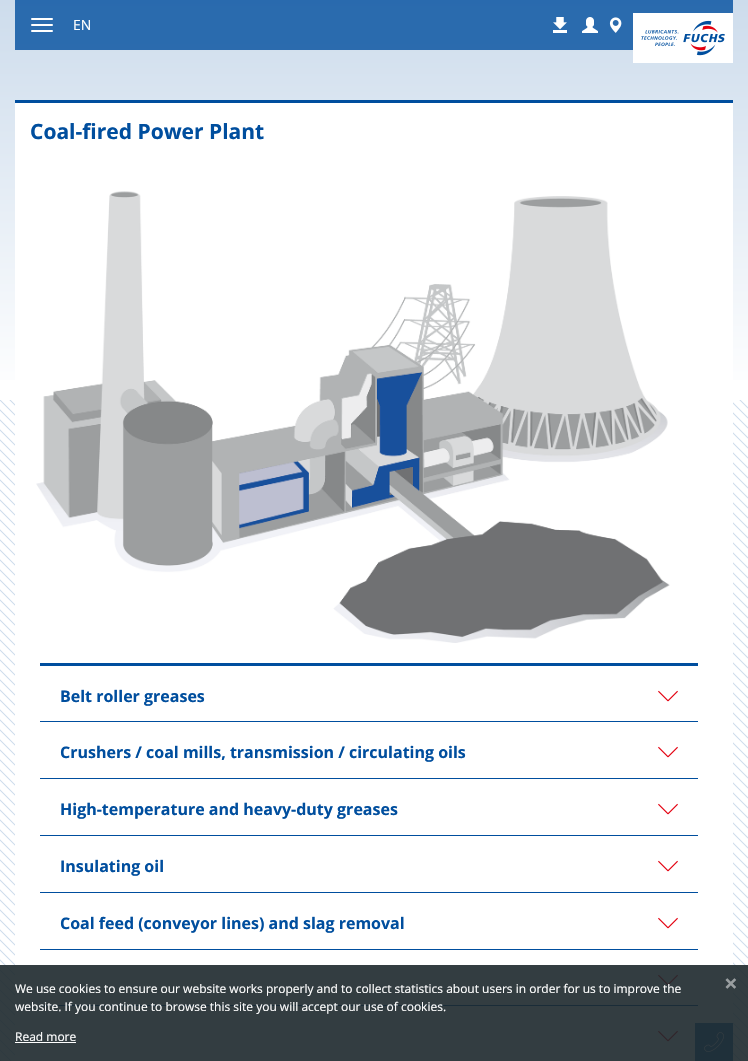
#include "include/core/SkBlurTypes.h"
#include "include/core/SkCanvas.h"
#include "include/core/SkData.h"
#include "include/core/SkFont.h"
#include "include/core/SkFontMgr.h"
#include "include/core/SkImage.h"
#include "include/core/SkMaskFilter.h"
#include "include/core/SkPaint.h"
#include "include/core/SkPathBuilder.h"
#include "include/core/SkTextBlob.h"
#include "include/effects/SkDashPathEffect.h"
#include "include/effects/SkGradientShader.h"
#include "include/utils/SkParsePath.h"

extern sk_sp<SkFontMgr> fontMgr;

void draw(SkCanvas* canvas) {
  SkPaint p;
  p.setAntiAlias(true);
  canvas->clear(SK_ColorWHITE);
  canvas->drawImageRect(SkImages::DeferredFromEncodedData(SkData::MakeFromFileName("images/1.png")), SkRect::MakeLTRB(0, 400, 748, 1061), SkSamplingOptions());
  {
    const SkColor colors[] = {SK_ColorWHITE, SkColorSetRGB(205, 220, 236)};
    const float stops[] = {0, 1};
    const SkPoint ends[] = {{374, 400}, {374, 0}};
    p.setShader(SkGradientShader::MakeLinear(ends, colors, stops, 2, SkTileMode::kClamp));
    p.setAlpha(255);
  }
  canvas->drawRect(SkRect::MakeLTRB(0, 0, 748, 380), p);
  p.setShader(nullptr);
  p.setColor(SkColorSetARGB(204, 0, 78, 158));
  canvas->drawRect(SkRect::MakeLTRB(15, 0, 733, 50), p);
  p.setColor(SK_ColorWHITE);
  canvas->drawRoundRect(SkRect::MakeLTRB(31, 18, 53, 20), 1, 1, p);
  canvas->drawRoundRect(SkRect::MakeLTRB(31, 24, 53, 26), 1, 1, p);
  canvas->drawRoundRect(SkRect::MakeLTRB(31, 30, 53, 32), 1, 1, p);
  canvas->drawRect(SkRect::MakeLTRB(633, 13, 733, 63), p);
  canvas->drawImageRect(SkImages::DeferredFromEncodedData(SkData::MakeFromFileName("images/2.png")), SkRect::MakeLTRB(641, 20, 725, 56), SkSamplingOptions());
  canvas->drawImageRect(SkImages::DeferredFromEncodedData(SkData::MakeFromFileName("images/3.png")), SkRect::MakeLTRB(553, 17, 567, 33), SkSamplingOptions());
  canvas->drawImageRect(SkImages::DeferredFromEncodedData(SkData::MakeFromFileName("images/4.png")), SkRect::MakeLTRB(582, 17, 598, 33), SkSamplingOptions());
  canvas->drawImageRect(SkImages::DeferredFromEncodedData(SkData::MakeFromFileName("images/5.png")), SkRect::MakeLTRB(609, 17, 622, 33), SkSamplingOptions());
  canvas->drawRect(SkRect::MakeLTRB(15, 103, 733, 1061), p);
  p.setColor(SkColorSetRGB(0, 78, 158));
  canvas->drawRect(SkRect::MakeLTRB(15, 100, 733, 103), p);
  canvas->drawImageRect(SkImages::DeferredFromEncodedData(SkData::MakeFromFileName("images/6.png")), SkRect::MakeLTRB(36, 191, 670, 643), SkSamplingOptions());
  canvas->drawRect(SkRect::MakeLTRB(40, 663, 698, 666), p);
  canvas->drawRect(SkRect::MakeLTRB(40, 721, 698, 722), p);
  canvas->drawImageRect(SkImages::DeferredFromEncodedData(SkData::MakeFromFileName("images/7.png")), SkRect::MakeLTRB(658, 690, 678, 702), SkSamplingOptions());
  canvas->drawRect(SkRect::MakeLTRB(40, 778, 698, 779), p);
  canvas->drawImageRect(SkImages::DeferredFromEncodedData(SkData::MakeFromFileName("images/7.png")), SkRect::MakeLTRB(658, 746, 678, 758), SkSamplingOptions());
  canvas->drawRect(SkRect::MakeLTRB(40, 835, 698, 836), p);
  canvas->drawImageRect(SkImages::DeferredFromEncodedData(SkData::MakeFromFileName("images/7.png")), SkRect::MakeLTRB(658, 803, 678, 815), SkSamplingOptions());
  canvas->drawRect(SkRect::MakeLTRB(40, 892, 698, 893), p);
  canvas->drawImageRect(SkImages::DeferredFromEncodedData(SkData::MakeFromFileName("images/7.png")), SkRect::MakeLTRB(658, 860, 678, 872), SkSamplingOptions());
  canvas->drawRect(SkRect::MakeLTRB(40, 949, 698, 950), p);
  canvas->drawImageRect(SkImages::DeferredFromEncodedData(SkData::MakeFromFileName("images/7.png")), SkRect::MakeLTRB(658, 917, 678, 929), SkSamplingOptions());
  canvas->drawRect(SkRect::MakeLTRB(40, 1005, 698, 1006), p);
  canvas->drawImageRect(SkImages::DeferredFromEncodedData(SkData::MakeFromFileName("images/7.png")), SkRect::MakeLTRB(658, 974, 678, 986), SkSamplingOptions());
  canvas->drawImageRect(SkImages::DeferredFromEncodedData(SkData::MakeFromFileName("images/7.png")), SkRect::MakeLTRB(658, 1030, 678, 1042), SkSamplingOptions());
  p.setColor(SkColorSetRGB(51, 113, 177));
  canvas->drawRect(SkRect::MakeLTRB(695, 1023, 733, 1061), p);
  canvas->drawImageRect(SkImages::DeferredFromEncodedData(SkData::MakeFromFileName("images/8.png")), SkRect::MakeLTRB(704, 1032, 724, 1052), SkSamplingOptions());
  p.setColor(SkColorSetARGB(230, 29, 40, 44));
  canvas->drawRect(SkRect::MakeLTRB(0, 965, 748, 1061), p);
  p.setColor(SK_ColorWHITE);
  canvas->drawRect(SkRect::MakeLTRB(15, 1042, 76, 1043), p);
  SkFont font1(fontMgr->matchFamilyStyle("Open Sans", SkFontStyle::Normal()), 14);
  font1.setSubpixel(true);
  canvas->drawString("EN", 73, 30, font1, p);
  SkFont font2(fontMgr->matchFamilyStyle("Open Sans", SkFontStyle::Bold()), 21);
  font2.setSubpixel(true);
  p.setColor(SkColorSetRGB(0, 78, 158));
  canvas->drawString("Coal-fired Power Plant", 30, 139, font2, p);
  SkFont font3(fontMgr->matchFamilyStyle("Open Sans", SkFontStyle::Bold()), 16);
  font3.setSubpixel(true);
  canvas->drawString("Belt roller greases", 60, 702, font3, p);
  canvas->drawString("Crushers / coal mills, transmission / circulating oils", 60, 758, font3, p);
  canvas->drawString("High-temperature and heavy-duty greases", 60, 815, font3, p);
  canvas->drawString("Insulating oil", 60, 872, font3, p);
  canvas->drawString("Coal feed (conveyor lines) and slag removal", 60, 929, font3, p);
  SkFont font4(fontMgr->matchFamilyStyle("Open Sans", SkFontStyle::Normal()), 12);
  font4.setSubpixel(true);
  p.setColor(SK_ColorWHITE);
  canvas->drawString("We use cookies to ensure our website works properly and to collect statistics about users in order for us to improve the", 15, 993, font4, p);
  canvas->drawString("website. If you continue to browse this site you will accept our use of cookies.", 15, 1011, font4, p);
  canvas->drawString("Read more", 15, 1041, font4, p);
  SkFont font5(fontMgr->matchFamilyStyle("Open Sans", SkFontStyle::Bold()), 24);
  font5.setSubpixel(true);
  p.setColor(SkColorSetRGB(153, 158, 160));
  canvas->drawString("×", 724, 992, font5, p);
}
